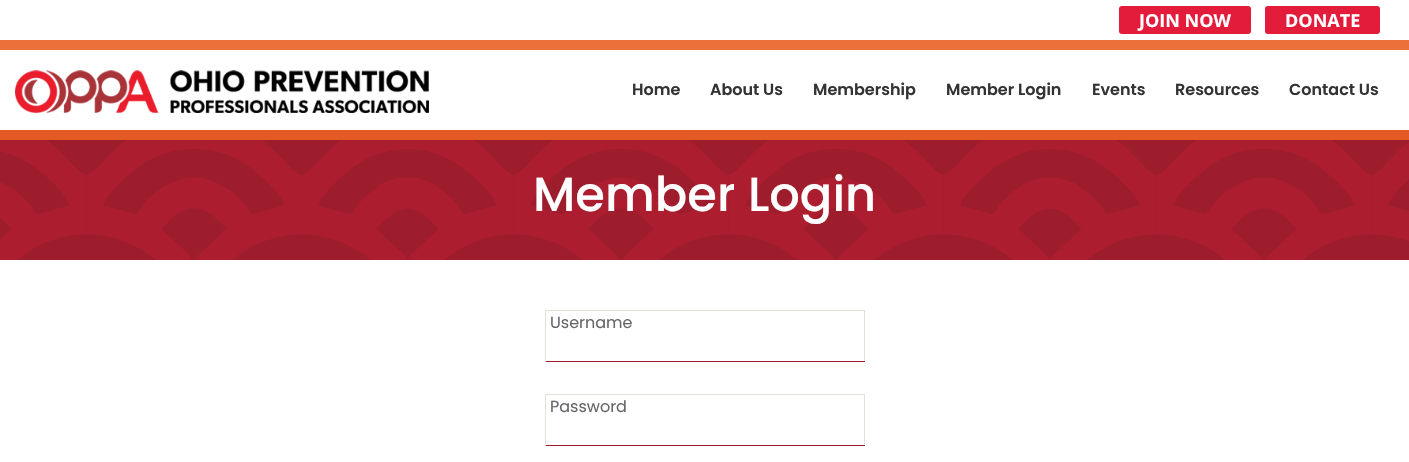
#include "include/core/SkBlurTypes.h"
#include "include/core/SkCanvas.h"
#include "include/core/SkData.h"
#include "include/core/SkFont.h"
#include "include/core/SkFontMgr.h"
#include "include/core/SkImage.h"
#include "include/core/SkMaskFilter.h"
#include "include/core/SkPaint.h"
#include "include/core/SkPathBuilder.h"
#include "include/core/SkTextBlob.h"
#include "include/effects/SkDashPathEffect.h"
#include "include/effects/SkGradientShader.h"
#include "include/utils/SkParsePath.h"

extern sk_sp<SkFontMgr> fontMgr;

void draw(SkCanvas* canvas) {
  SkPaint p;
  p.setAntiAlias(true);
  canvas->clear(SK_ColorWHITE);
  p.setColor(SkColorSetRGB(227, 28, 60));
  canvas->drawRoundRect(SkRect::MakeLTRB(1118, 5, 1252, 35), 4, 4, p);
  p.setStyle(SkPaint::kStroke_Style);
  p.setStrokeWidth(2);
  p.setColor(SK_ColorWHITE);
  canvas->drawRoundRect(SkRect::MakeLTRB(1118, 5, 1252, 35), 4, 4, p);
  p.setStyle(SkPaint::kFill_Style);
  p.setColor(SkColorSetRGB(227, 28, 60));
  canvas->drawRoundRect(SkRect::MakeLTRB(1264, 5, 1381, 35), 4, 4, p);
  p.setStyle(SkPaint::kStroke_Style);
  p.setColor(SK_ColorWHITE);
  canvas->drawRoundRect(SkRect::MakeLTRB(1264, 5, 1381, 35), 4, 4, p);
  canvas->drawImageRect(SkImages::DeferredFromEncodedData(SkData::MakeFromFileName("images/2.png")), SkRect::MakeLTRB(0, 130, 1409, 260), SkSamplingOptions());
  p.setStrokeWidth(10);
  p.setColor(SkColorSetARGB(230, 234, 96, 36));
  canvas->drawRect(SkRect::MakeLTRB(-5, 45, 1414, 135), p);
  canvas->drawImageRect(SkImages::DeferredFromEncodedData(SkData::MakeFromFileName("images/1.png")), SkRect::MakeLTRB(15, 70, 429, 113), SkSamplingOptions());
  p.setStyle(SkPaint::kFill_Style);
  p.setColor(SkColorSetRGB(224, 225, 218));
  canvas->drawRect(SkRect::MakeLTRB(545, 310, 865, 311), p);
  canvas->drawRect(SkRect::MakeLTRB(864, 310, 865, 362), p);
  p.setColor(SkColorSetRGB(157, 29, 44));
  canvas->drawRect(SkRect::MakeLTRB(545, 361, 865, 362), p);
  p.setColor(SkColorSetRGB(224, 225, 218));
  canvas->drawRect(SkRect::MakeLTRB(545, 310, 546, 362), p);
  canvas->drawRect(SkRect::MakeLTRB(545, 394, 865, 395), p);
  canvas->drawRect(SkRect::MakeLTRB(864, 394, 865, 446), p);
  p.setColor(SkColorSetRGB(157, 29, 44));
  canvas->drawRect(SkRect::MakeLTRB(545, 445, 865, 446), p);
  p.setColor(SkColorSetRGB(224, 225, 218));
  canvas->drawRect(SkRect::MakeLTRB(545, 394, 546, 446), p);
  SkFont font1(fontMgr->matchFamilyStyle("Open Sans", SkFontStyle::Bold()), 18);
  font1.setSubpixel(true);
  p.setColor(SK_ColorWHITE);
  canvas->drawString("JOIN NOW", 1139, 27, font1, p);
  canvas->drawString("DONATE", 1285, 27, font1, p);
  SkFont font2(fontMgr->matchFamilyStyle("Poppins", SkFontStyle(600, SkFontStyle::kNormal_Width, SkFontStyle::kUpright_Slant)), 16);
  font2.setSubpixel(true);
  p.setColor(SkColorSetRGB(51, 51, 51));
  canvas->drawString("Home", 632, 95, font2, p);
  canvas->drawString("About Us", 710, 95, font2, p);
  canvas->drawString("Membership", 813, 95, font2, p);
  canvas->drawString("Member Login", 946, 95, font2, p);
  canvas->drawString("Events", 1092, 95, font2, p);
  canvas->drawString("Resources", 1175, 95, font2, p);
  canvas->drawString("Contact Us", 1289, 95, font2, p);
  SkFont font3(fontMgr->matchFamilyStyle("Poppins", SkFontStyle(500, SkFontStyle::kNormal_Width, SkFontStyle::kUpright_Slant)), 48);
  font3.setSubpixel(true);
  p.setColor(SK_ColorWHITE);
  canvas->drawString("Member Login", 533, 211, font3, p);
  SkFont font4(fontMgr->matchFamilyStyle("Poppins", SkFontStyle::Normal()), 16);
  font4.setSubpixel(true);
  p.setColor(SkColorSetRGB(102, 102, 102));
  canvas->drawString("Username", 550, 328, font4, p);
  canvas->drawString("Password", 550, 412, font4, p);
}
